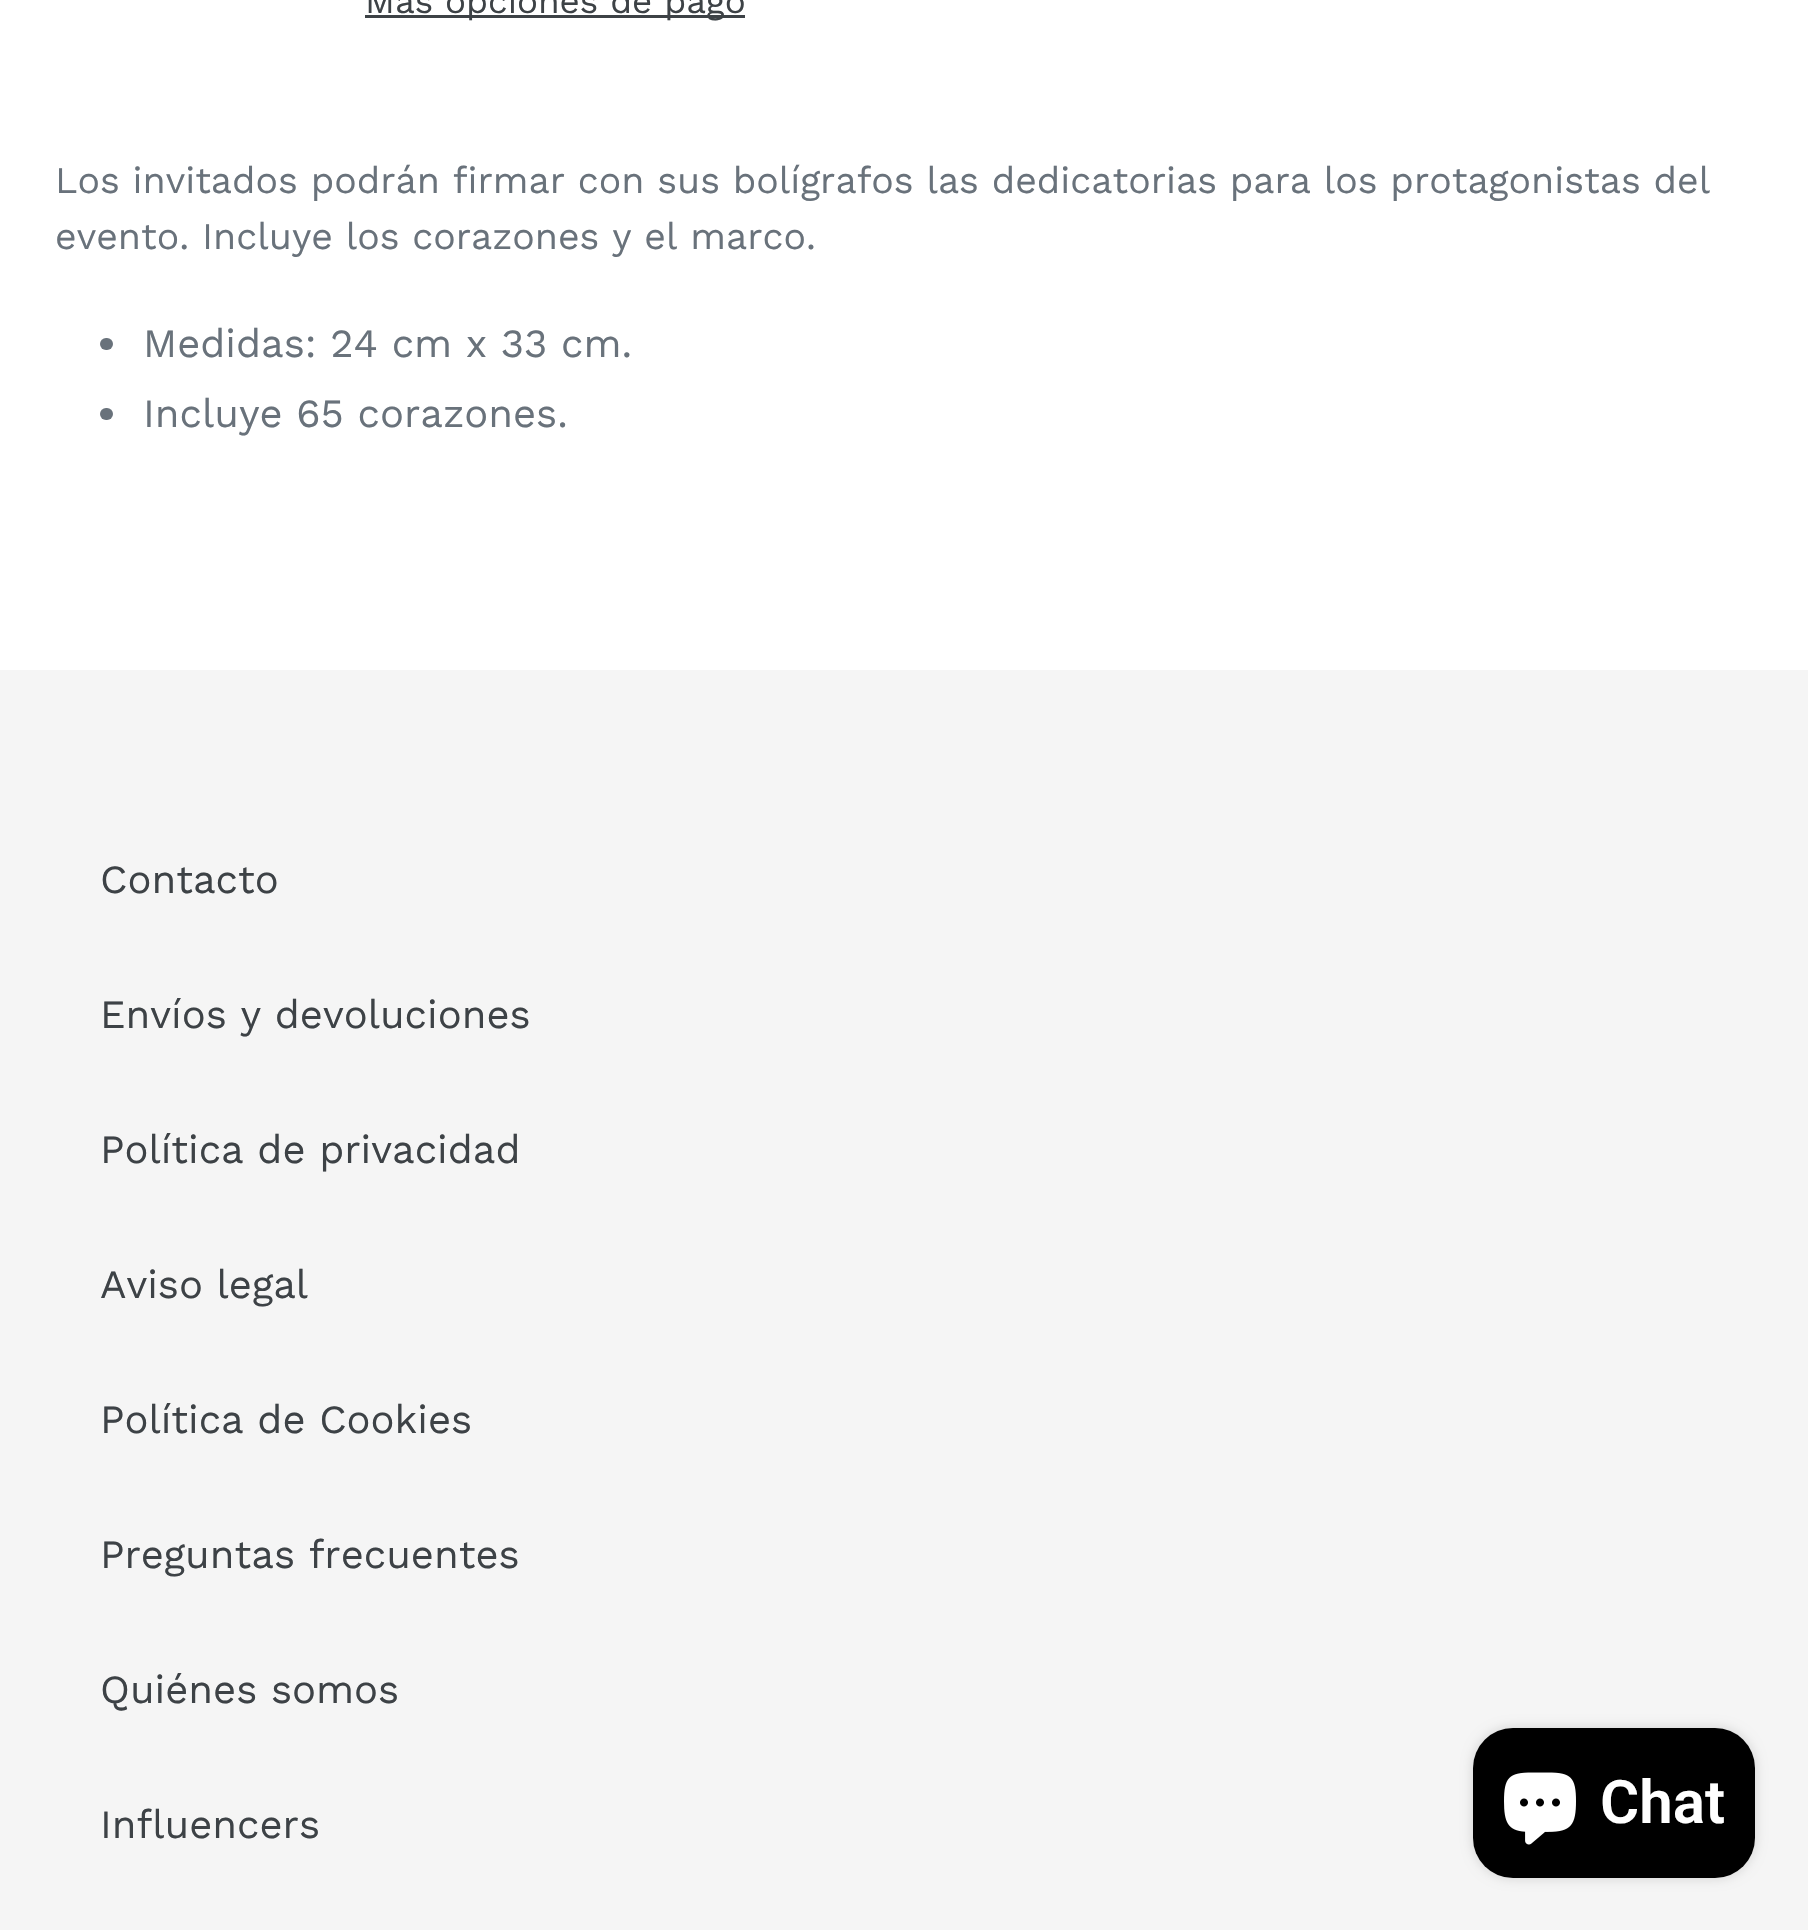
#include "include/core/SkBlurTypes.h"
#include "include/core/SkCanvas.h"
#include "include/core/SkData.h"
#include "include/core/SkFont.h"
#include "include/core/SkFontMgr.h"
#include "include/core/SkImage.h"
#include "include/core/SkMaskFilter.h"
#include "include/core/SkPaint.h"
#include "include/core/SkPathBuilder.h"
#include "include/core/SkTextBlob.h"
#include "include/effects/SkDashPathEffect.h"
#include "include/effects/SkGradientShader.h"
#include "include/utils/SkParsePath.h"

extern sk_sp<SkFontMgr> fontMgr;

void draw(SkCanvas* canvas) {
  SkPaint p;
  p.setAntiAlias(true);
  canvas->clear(SK_ColorWHITE);
  p.setColor(SkColorSetRGB(61, 66, 70));
  canvas->drawRect(SkRect::MakeLTRB(365, 15, 745, 18), p);
  p.setColor(SkColorSetRGB(105, 114, 123));
  canvas->drawRoundRect(SkRect::MakeLTRB(100, 338, 113, 350), 6, 6, p);
  canvas->drawRoundRect(SkRect::MakeLTRB(100, 408, 113, 420), 6, 6, p);
  p.setColor(SkColorSetRGB(245, 245, 245));
  canvas->drawRect(SkRect::MakeLTRB(0, 670, 1808, 1930), p);
  p.setColor(SkColorSetARGB(38, 0, 0, 0));
  p.setMaskFilter(SkMaskFilter::MakeBlur(kNormal_SkBlurStyle, 6));
  canvas->drawRoundRect(SkRect::MakeLTRB(1473, 1728, 1755, 1878), 40, 40, p);
  p.setMaskFilter(nullptr);
  p.setColor(SK_ColorBLACK);
  canvas->drawRoundRect(SkRect::MakeLTRB(1473, 1728, 1755, 1878), 40, 40, p);
  canvas->drawImageRect(SkImages::DeferredFromEncodedData(SkData::MakeFromFileName("images/1.png")), SkRect::MakeLTRB(1504, 1772, 1576, 1845), SkSamplingOptions());
  SkFont font1(fontMgr->matchFamilyStyle("Work Sans", SkFontStyle::Normal()), 35);
  font1.setSubpixel(true);
  p.setColor(SkColorSetRGB(61, 66, 70));
  canvas->drawString("Más opciones de pago", 365, 13, font1, p);
  SkFont font2(fontMgr->matchFamilyStyle("Work Sans", SkFontStyle::Normal()), 37.5f);
  font2.setSubpixel(true);
  p.setColor(SkColorSetRGB(105, 114, 123));
  canvas->drawString("Los invitados podrán firmar con sus bolígrafos las dedicatorias para los protagonistas del", 55, 193, font2, p);
  canvas->drawString("evento. Incluye los corazones y el marco.", 55, 249, font2, p);
  SkFont font3(fontMgr->matchFamilyStyle("Work Sans", SkFontStyle::Normal()), 40);
  font3.setSubpixel(true);
  canvas->drawString("Medidas: 24 cm x 33 cm.", 143, 357, font3, p);
  canvas->drawString("Incluye 65 corazones.", 143, 427, font3, p);
  p.setColor(SkColorSetRGB(61, 66, 70));
  canvas->drawString("Contacto", 100, 893, font3, p);
  canvas->drawString("Envíos y devoluciones", 100, 1028, font3, p);
  canvas->drawString("Política de privacidad", 100, 1163, font3, p);
  canvas->drawString("Aviso legal", 100, 1298, font3, p);
  canvas->drawString("Política de Cookies", 100, 1433, font3, p);
  canvas->drawString("Preguntas frecuentes", 100, 1568, font3, p);
  canvas->drawString("Quiénes somos", 100, 1703, font3, p);
  canvas->drawString("Influencers", 100, 1838, font3, p);
  SkFont font4(fontMgr->matchFamilyStyle("Roboto", SkFontStyle(600, SkFontStyle::kNormal_Width, SkFontStyle::kUpright_Slant)), 60);
  font4.setSubpixel(true);
  p.setColor(SK_ColorWHITE);
  canvas->drawString("Chat", 1600, 1823, font4, p);
}
